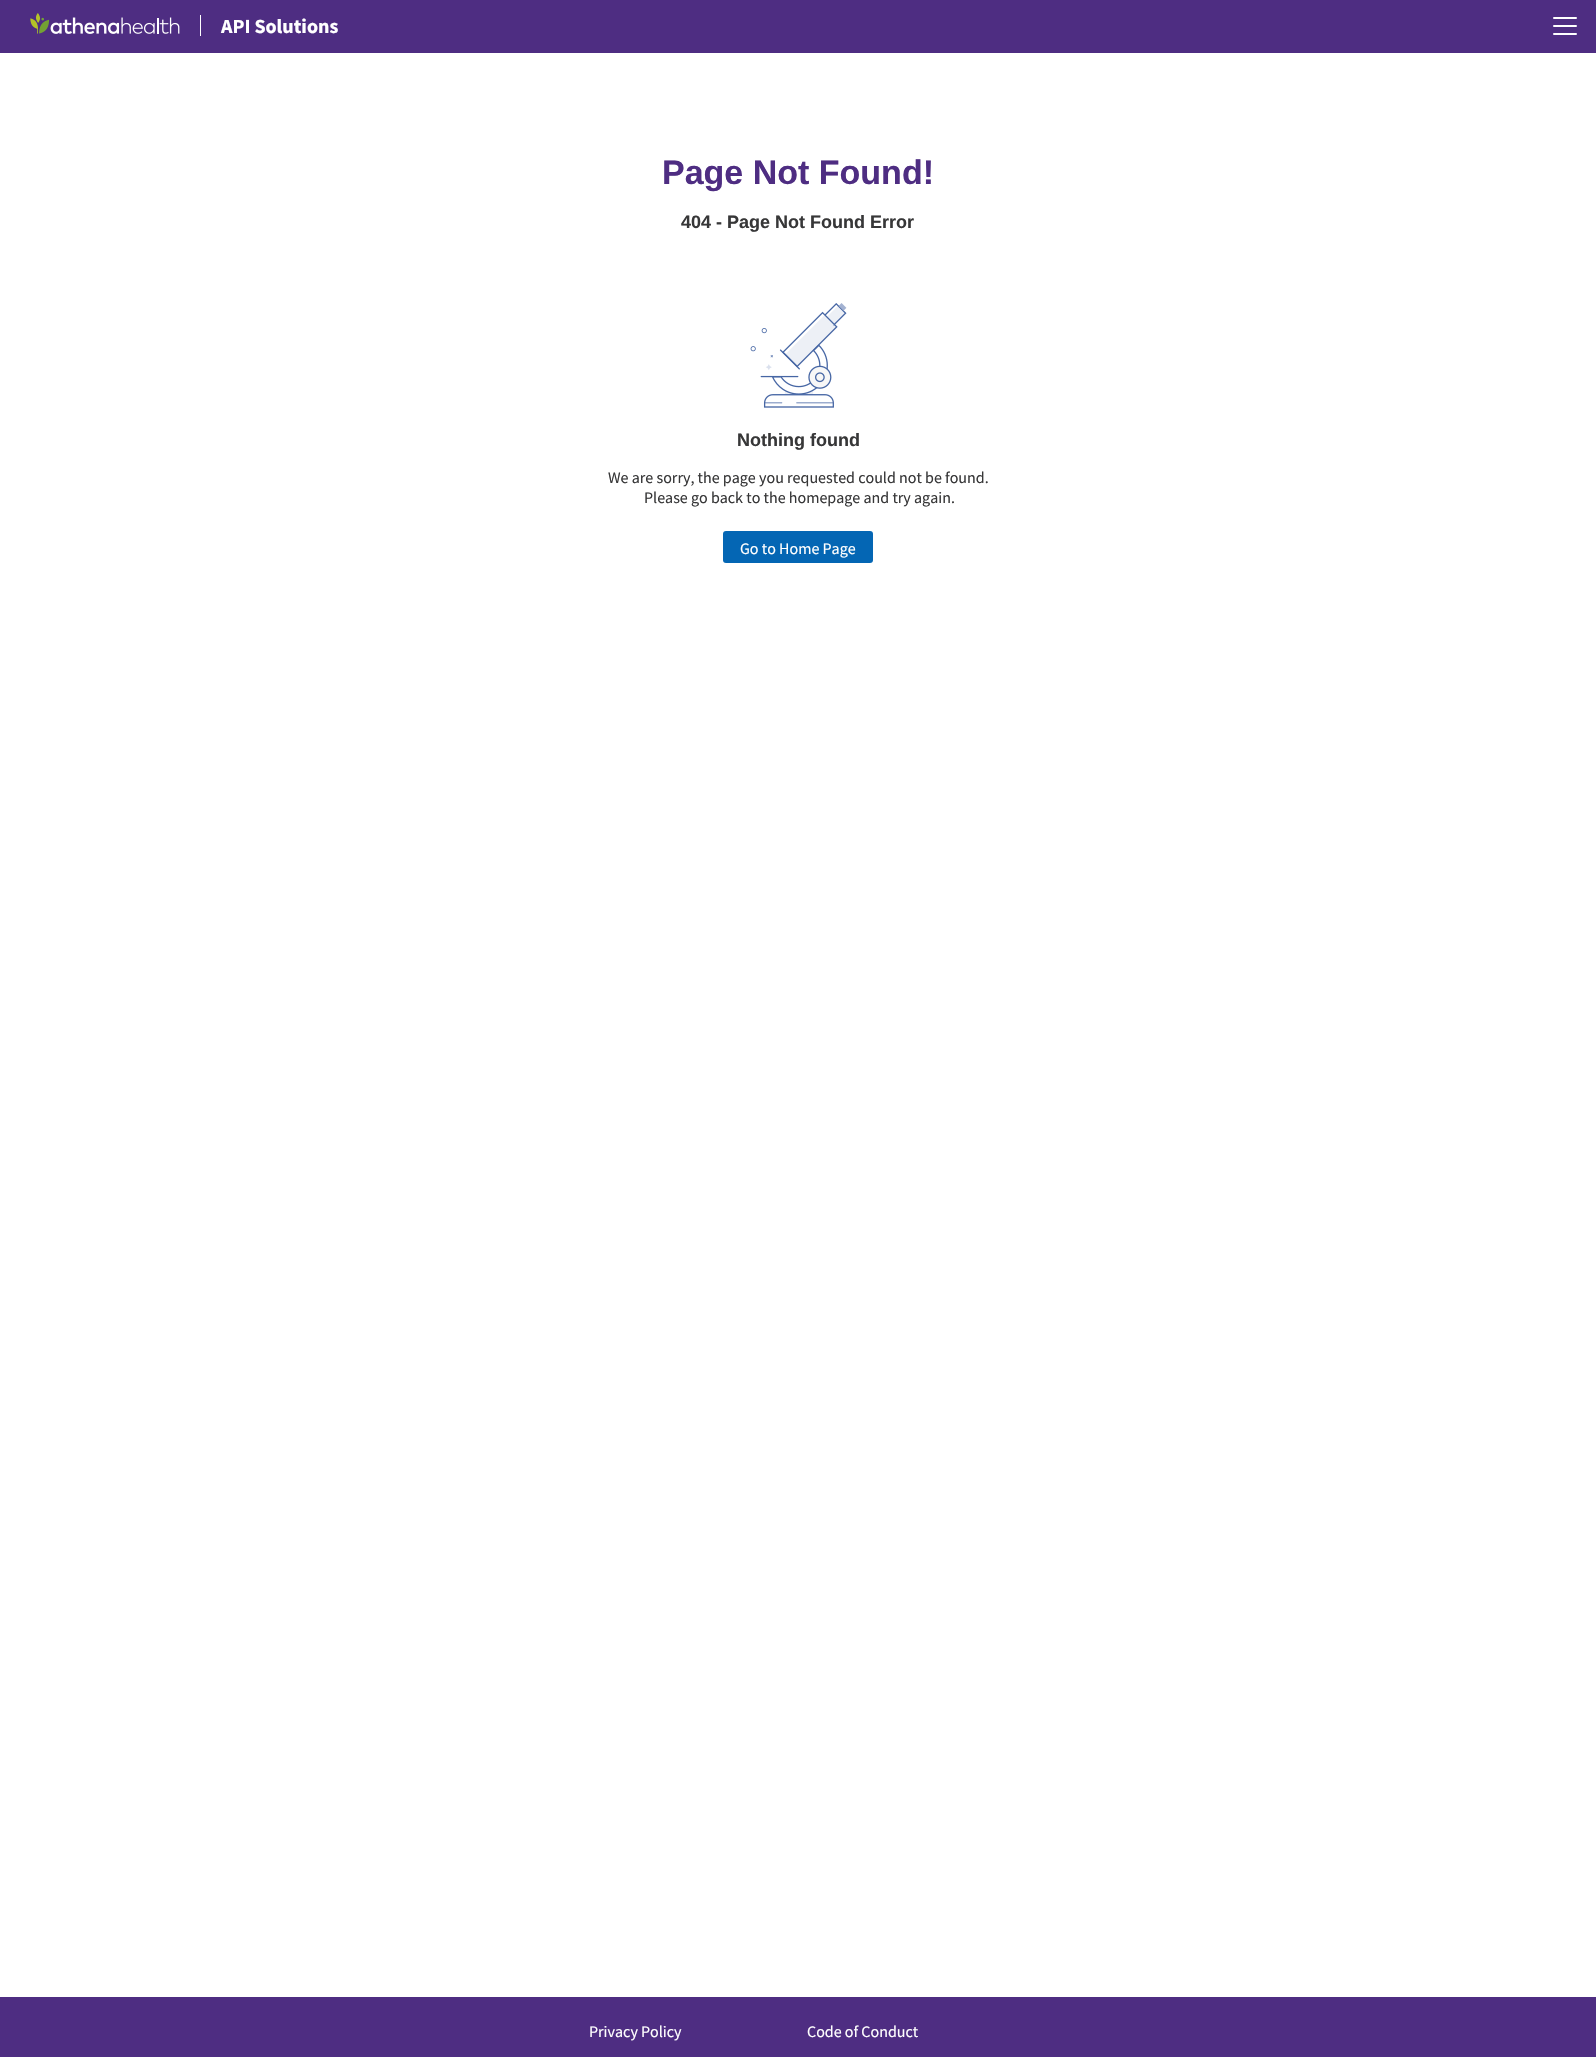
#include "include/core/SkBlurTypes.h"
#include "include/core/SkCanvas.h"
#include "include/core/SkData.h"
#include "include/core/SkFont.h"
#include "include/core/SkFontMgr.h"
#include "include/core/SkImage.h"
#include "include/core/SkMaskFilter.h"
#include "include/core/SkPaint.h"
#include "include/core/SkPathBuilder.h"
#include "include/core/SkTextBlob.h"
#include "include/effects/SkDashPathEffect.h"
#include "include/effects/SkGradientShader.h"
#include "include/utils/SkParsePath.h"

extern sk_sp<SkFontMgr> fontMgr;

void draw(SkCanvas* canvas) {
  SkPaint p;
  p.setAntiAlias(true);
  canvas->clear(SK_ColorWHITE);
  p.setColor(SkColorSetRGB(78, 45, 130));
  canvas->drawRect(SkRect::MakeLTRB(0, 0, 1596, 53), p);
  canvas->drawImageRect(SkImages::DeferredFromEncodedData(SkData::MakeFromFileName("images/1.png")), SkRect::MakeLTRB(30, 13, 180, 34), SkSamplingOptions());
  p.setColor(SK_ColorWHITE);
  canvas->drawRect(SkRect::MakeLTRB(200, 15, 201, 36), p);
  p.setStyle(SkPaint::kStroke_Style);
  p.setStrokeWidth(2);
  p.setStrokeCap(SkPaint::kRound_Cap);
  canvas->drawPath(SkPathBuilder().moveTo(1576, 18).lineTo(1554, 18).moveTo(1576, 34).lineTo(1554, 34).moveTo(1576, 26).lineTo(1554, 26).detach(), p);
  canvas->drawImageRect(SkImages::DeferredFromEncodedData(SkData::MakeFromFileName("images/2.png")), SkRect::MakeLTRB(750, 303, 847, 408), SkSamplingOptions());
  p.setStyle(SkPaint::kFill_Style);
  p.setColor(SkColorSetRGB(4, 102, 180));
  canvas->drawRoundRect(SkRect::MakeLTRB(723, 531, 873, 563), 3, 3, p);
  p.setColor(SkColorSetRGB(78, 45, 130));
  canvas->drawRect(SkRect::MakeLTRB(0, 1997, 1596, 2057), p);
  SkFont font1(fontMgr->matchFamilyStyle("Source Sans Pro", SkFontStyle::Bold()), 20);
  font1.setSubpixel(true);
  p.setColor(SK_ColorWHITE);
  canvas->drawString("API Solutions", 221, 33, font1, p);
  SkFont font2(fontMgr->matchFamilyStyle("Liberation Sans", SkFontStyle::Bold()), 34);
  font2.setSubpixel(true);
  p.setColor(SkColorSetRGB(78, 45, 130));
  canvas->drawString("Page Not Found!", 662, 184, font2, p);
  SkFont font3(fontMgr->matchFamilyStyle("Liberation Sans", SkFontStyle::Bold()), 18);
  font3.setSubpixel(true);
  p.setColor(SkColorSetRGB(55, 55, 56));
  canvas->drawString("404 - Page Not Found Error", 681, 228, font3, p);
  canvas->drawString("Nothing found", 737, 446, font3, p);
  SkFont font4(fontMgr->matchFamilyStyle("Source Sans Pro", SkFontStyle::Normal()), 16);
  font4.setSubpixel(true);
  canvas->drawString("We are sorry, the page you requested could not be found.", 608, 483, font4, p);
  canvas->drawString("Please go back to the homepage and try again.", 644, 503, font4, p);
  p.setColor(SK_ColorWHITE);
  canvas->drawString("Go to Home Page", 740, 554, font4, p);
  canvas->drawString("Privacy Policy", 589, 2037, font4, p);
  canvas->drawString("Code of Conduct", 807, 2037, font4, p);
}
